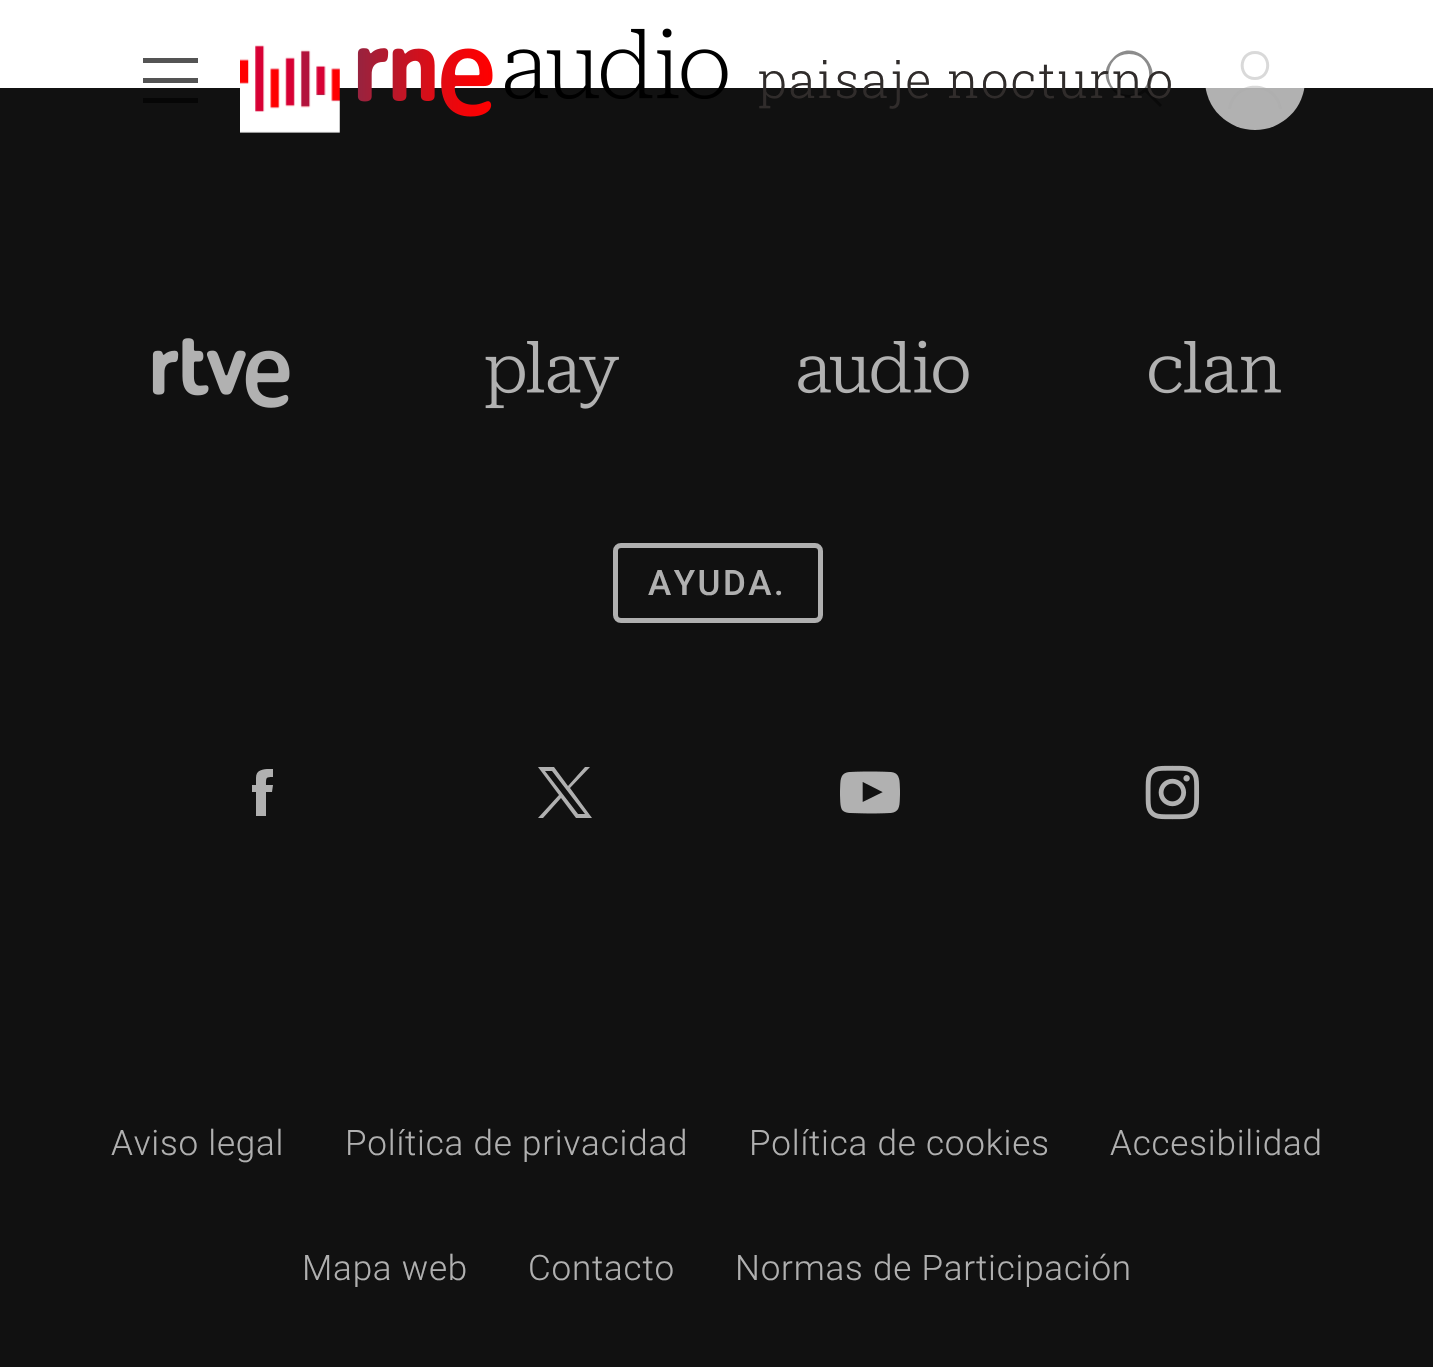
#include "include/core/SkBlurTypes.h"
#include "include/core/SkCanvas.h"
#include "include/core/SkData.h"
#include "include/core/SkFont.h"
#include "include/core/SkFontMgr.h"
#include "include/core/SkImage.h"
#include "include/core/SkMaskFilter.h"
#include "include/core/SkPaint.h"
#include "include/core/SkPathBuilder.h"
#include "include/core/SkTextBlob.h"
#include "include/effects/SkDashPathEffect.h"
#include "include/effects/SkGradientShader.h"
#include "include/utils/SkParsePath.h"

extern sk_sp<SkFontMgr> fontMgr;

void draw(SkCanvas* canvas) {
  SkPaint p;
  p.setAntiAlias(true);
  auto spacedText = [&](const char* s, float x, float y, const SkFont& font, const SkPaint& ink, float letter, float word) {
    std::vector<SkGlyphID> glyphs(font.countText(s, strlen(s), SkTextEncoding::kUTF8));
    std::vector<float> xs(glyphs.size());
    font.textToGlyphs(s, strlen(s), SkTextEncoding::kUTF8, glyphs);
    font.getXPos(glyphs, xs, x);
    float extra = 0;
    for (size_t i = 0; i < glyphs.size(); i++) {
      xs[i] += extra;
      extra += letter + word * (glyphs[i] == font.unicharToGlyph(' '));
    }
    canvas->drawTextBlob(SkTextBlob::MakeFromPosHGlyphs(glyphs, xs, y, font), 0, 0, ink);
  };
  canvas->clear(SK_ColorWHITE);
  p.setColor(SkColorSetRGB(84, 84, 84));
  canvas->drawRect(SkRect::MakeLTRB(143, 58, 198, 63), p);
  canvas->drawRect(SkRect::MakeLTRB(143, 78, 198, 83), p);
  p.setColor(SkColorSetRGB(17, 17, 17));
  canvas->drawRect(SkRect::MakeLTRB(0, 88, 1433, 1367), p);
  p.setColor(SkColorSetRGB(6, 6, 6));
  canvas->drawRect(SkRect::MakeLTRB(143, 98, 198, 103), p);
  canvas->drawImageRect(SkImages::DeferredFromEncodedData(SkData::MakeFromFileName("images/1.png")), SkRect::MakeLTRB(357, 48, 493, 117), SkSamplingOptions());
  canvas->drawImageRect(SkImages::DeferredFromEncodedData(SkData::MakeFromFileName("images/2.png")), SkRect::MakeLTRB(240, 45, 340, 133), SkSamplingOptions());
  canvas->drawImageRect(SkImages::DeferredFromEncodedData(SkData::MakeFromFileName("images/3.png")), SkRect::MakeLTRB(505, 28, 728, 99), SkSamplingOptions());
  p.setColor(SkColorSetARGB(115, 0, 0, 0));
  canvas->drawPath(SkPathBuilder().moveTo(1162, 105).lineTo(1147, 90).cubicTo(1166, 68, 1134, 36, 1113, 58).cubicTo(1091, 79, 1123, 111, 1145, 92).lineTo(1160, 107).close().moveTo(1129, 95).cubicTo(1102, 95, 1102, 54, 1129, 54).cubicTo(1156, 54, 1156, 95, 1129, 95).close().detach(), p);
  canvas->drawPath(SkPathBuilder().moveTo(1255, 80).cubicTo(1274, 80, 1274, 51, 1255, 51).cubicTo(1236, 51, 1236, 80, 1255, 80).close().moveTo(1255, 77).cubicTo(1240, 77, 1240, 54, 1255, 54).cubicTo(1270, 54, 1270, 77, 1255, 77).close().moveTo(1228, 109).cubicTo(1233, 78, 1277, 78, 1282, 109).lineTo(1279, 109).cubicTo(1275, 82, 1235, 82, 1231, 109).close().detach(), p);
  p.setColor(SkColorSetARGB(171, 255, 255, 255));
  canvas->drawCircle(1255, 80, 50, p);
  canvas->drawImageRect(SkImages::DeferredFromEncodedData(SkData::MakeFromFileName("images/4.png")), SkRect::MakeLTRB(152, 338, 290, 408), SkSamplingOptions());
  canvas->drawImageRect(SkImages::DeferredFromEncodedData(SkData::MakeFromFileName("images/5.png")), SkRect::MakeLTRB(485, 341, 619, 409), SkSamplingOptions());
  canvas->drawImageRect(SkImages::DeferredFromEncodedData(SkData::MakeFromFileName("images/6.png")), SkRect::MakeLTRB(798, 340, 969, 394), SkSamplingOptions());
  canvas->drawImageRect(SkImages::DeferredFromEncodedData(SkData::MakeFromFileName("images/7.png")), SkRect::MakeLTRB(1149, 341, 1281, 394), SkSamplingOptions());
  p.setStyle(SkPaint::kStroke_Style);
  p.setStrokeWidth(5);
  p.setColor(SkColorSetRGB(176, 176, 176));
  canvas->drawRoundRect(SkRect::MakeLTRB(615.5f, 545.5f, 820.5f, 620.5f), 5.5f, 5.5f, p);
  p.setStyle(SkPaint::kFill_Style);
  canvas->drawPath(SkPathBuilder().moveTo(256, 778).lineTo(256, 785).lineTo(252, 785).lineTo(252, 792).lineTo(256, 792).lineTo(256, 816).lineTo(266, 816).lineTo(266, 792).lineTo(272, 792).lineTo(273, 785).lineTo(266, 785).cubicTo(266, 777, 266, 777, 273, 777).lineTo(273, 769).cubicTo(266, 769, 256, 768, 256, 778).close().detach(), p);
  canvas->drawPath(SkPathBuilder().moveTo(570, 788).lineTo(590, 767).lineTo(585, 767).lineTo(568, 786).lineTo(554, 767).lineTo(538, 767).lineTo(559, 795).lineTo(538, 818).lineTo(543, 818).lineTo(561, 798).lineTo(576, 818).lineTo(592, 818).close().moveTo(545, 771).lineTo(552, 771).lineTo(585, 814).lineTo(578, 814).close().detach(), p);
  canvas->drawImageRect(SkImages::DeferredFromEncodedData(SkData::MakeFromFileName("images/8.png")), SkRect::MakeLTRB(840, 771, 900, 814), SkSamplingOptions());
  canvas->drawImageRect(SkImages::DeferredFromEncodedData(SkData::MakeFromFileName("images/9.png")), SkRect::MakeLTRB(1145, 765, 1200, 820), SkSamplingOptions());
  SkFont font1(fontMgr->matchFamilyStyle("Roboto Slab", SkFontStyle(300, SkFontStyle::kNormal_Width, SkFontStyle::kUpright_Slant)), 50);
  font1.setSubpixel(true);
  p.setColor(SkColorSetRGB(48, 44, 43));
  spacedText("paisaje nocturno", 758, 98, font1, p, 1.7f, 0);
  SkFont font2(fontMgr->matchFamilyStyle("Roboto", SkFontStyle(500, SkFontStyle::kNormal_Width, SkFontStyle::kUpright_Slant)), 35);
  font2.setSubpixel(true);
  p.setColor(SkColorSetRGB(176, 176, 176));
  spacedText("AYUDA.", 648, 595, font2, p, 2.5f, 0);
  SkFont font3(fontMgr->matchFamilyStyle("Roboto", SkFontStyle(300, SkFontStyle::kNormal_Width, SkFontStyle::kUpright_Slant)), 35);
  font3.setSubpixel(true);
  spacedText("Aviso legal", 111, 1155, font3, p, 0.8f, 0);
  spacedText("Política de privacidad", 345, 1155, font3, p, 0.8f, 0);
  spacedText("Política de cookies", 749, 1155, font3, p, 0.8f, 0);
  spacedText("Accesibilidad", 1110, 1155, font3, p, 0.8f, 0);
  spacedText("Mapa web", 302, 1280, font3, p, 0.8f, 0);
  spacedText("Contacto", 528, 1280, font3, p, 0.8f, 0);
  spacedText("Normas de Participación", 735, 1280, font3, p, 0.8f, 0);
}
